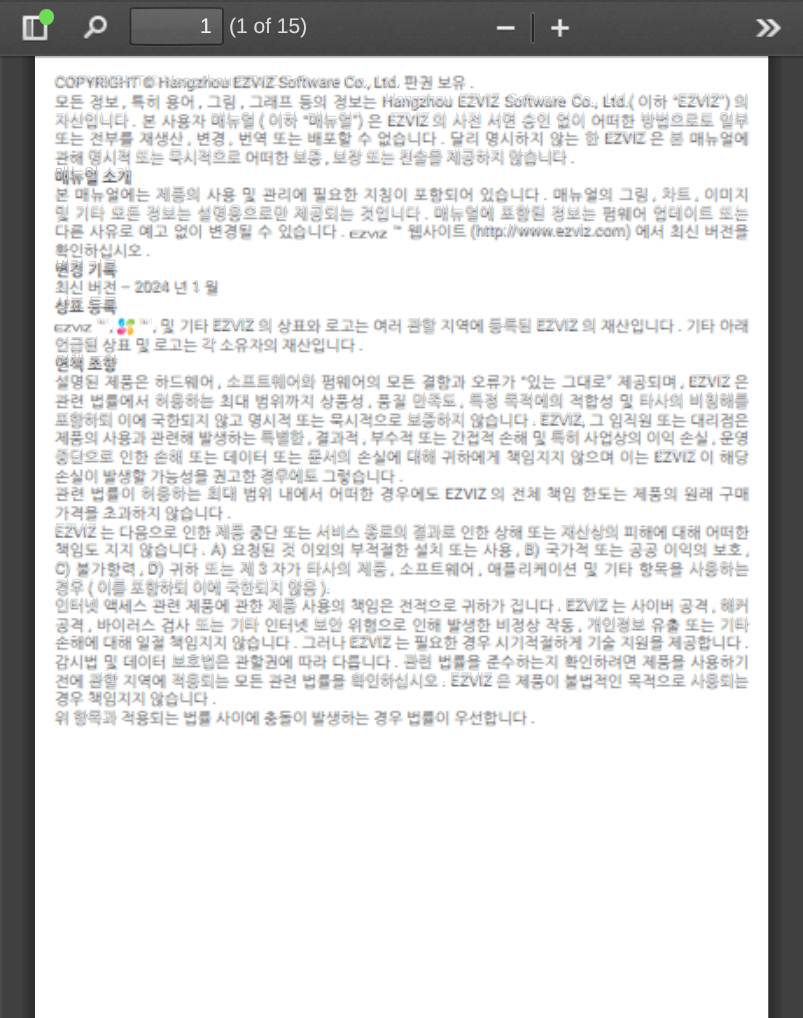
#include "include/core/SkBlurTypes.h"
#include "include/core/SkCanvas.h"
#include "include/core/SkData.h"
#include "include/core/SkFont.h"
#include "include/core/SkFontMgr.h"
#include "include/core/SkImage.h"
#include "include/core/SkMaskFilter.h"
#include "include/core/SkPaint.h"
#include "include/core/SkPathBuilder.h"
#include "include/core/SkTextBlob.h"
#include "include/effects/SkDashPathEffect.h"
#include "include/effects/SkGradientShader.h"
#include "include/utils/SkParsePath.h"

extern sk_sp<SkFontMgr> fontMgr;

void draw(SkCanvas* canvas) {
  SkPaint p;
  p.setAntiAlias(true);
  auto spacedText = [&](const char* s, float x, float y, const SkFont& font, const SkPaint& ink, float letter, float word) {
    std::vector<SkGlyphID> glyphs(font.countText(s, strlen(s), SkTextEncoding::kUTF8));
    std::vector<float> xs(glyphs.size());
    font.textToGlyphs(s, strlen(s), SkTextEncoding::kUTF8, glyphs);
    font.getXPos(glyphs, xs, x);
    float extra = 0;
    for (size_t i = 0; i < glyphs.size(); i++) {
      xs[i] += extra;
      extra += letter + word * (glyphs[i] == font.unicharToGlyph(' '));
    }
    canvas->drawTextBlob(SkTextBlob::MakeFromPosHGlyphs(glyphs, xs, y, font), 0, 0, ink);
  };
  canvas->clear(SkColorSetRGB(64, 64, 64));
  p.setColor(SkColorSetRGB(74, 74, 74));
  canvas->drawRect(SkRect::MakeLTRB(0, 56, 2, 1018), p);
  p.setColor(SK_ColorWHITE);
  canvas->drawRect(SkRect::MakeLTRB(35, 56, 768, 57), p);
  canvas->drawImageRect(SkImages::DeferredFromEncodedData(SkData::MakeFromFileName("images/7.png")), SkRect::MakeLTRB(22, 56, 782, 1018), SkSamplingOptions());
  canvas->drawImageRect(SkImages::DeferredFromEncodedData(SkData::MakeFromFileName("images/8.png")), SkRect::MakeLTRB(35, 56, 769, 1018), SkSamplingOptions());
  canvas->save();
  canvas->clipRect(SkRect::MakeLTRB(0, 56, 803, 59));
  p.setColor(SkColorSetARGB(26, 0, 0, 0));
  p.setMaskFilter(SkMaskFilter::MakeBlur(kNormal_SkBlurStyle, 1));
  canvas->drawRect(SkRect::MakeLTRB(0, 2, 803, 58), p);
  p.setMaskFilter(nullptr);
  canvas->restore();
  p.setColor(SkColorSetARGB(38, 0, 0, 0));
  canvas->drawRect(SkRect::MakeLTRB(0, 56, 803, 58), p);
  canvas->drawImageRect(SkImages::DeferredFromEncodedData(SkData::MakeFromFileName("images/1.png")), SkRect::MakeLTRB(0, 0, 803, 56), SkSamplingOptions());
  p.setColor(SkColorSetARGB(13, 255, 255, 255));
  canvas->drawRect(SkRect::MakeLTRB(0, 54, 803, 56), p);
  p.setColor(SkColorSetARGB(38, 0, 0, 0));
  canvas->drawRect(SkRect::MakeLTRB(0, 0, 803, 2), p);
  canvas->drawImageRect(SkImages::DeferredFromEncodedData(SkData::MakeFromFileName("images/2.png")), SkRect::MakeLTRB(22, 15, 48, 42), SkSamplingOptions());
  p.setColor(SkColorSetRGB(112, 219, 85));
  canvas->drawRoundRect(SkRect::MakeLTRB(39, 9, 54, 25), 7.5f, 7.5f, p);
  canvas->drawImageRect(SkImages::DeferredFromEncodedData(SkData::MakeFromFileName("images/3.png")), SkRect::MakeLTRB(83, 15, 108, 41), SkSamplingOptions());
  p.setColor(SkColorSetARGB(13, 255, 255, 255));
  canvas->drawPath(SkPathBuilder().moveTo(130, 44).cubicTo(131, 46, 132, 47, 134, 47).lineTo(220, 47).cubicTo(222, 47, 224, 45, 224, 43).lineTo(224, 42).cubicTo(224, 44, 222, 46, 220, 46).lineTo(133, 46).cubicTo(132, 46, 131, 45, 130, 44).close().detach(), p);
  p.setColor(SkColorSetARGB(23, 255, 255, 255));
  canvas->drawRoundRect(SkRect::MakeLTRB(131, 9, 222, 44), 2, 2, p);
  {
    const SkColor colors[] = {SkColorSetARGB(13, 255, 255, 255), SkColorSetARGB(0, 255, 255, 255)};
    const float stops[] = {0, 1};
    const SkPoint ends[] = {{177, 9}, {177, 44}};
    p.setShader(SkGradientShader::MakeLinear(ends, colors, stops, 2, SkTileMode::kClamp));
    p.setAlpha(255);
  }
  canvas->drawRect(SkRect::MakeLTRB(131, 9, 222, 29), p);
  p.setShader(nullptr);
  p.setColor(SkColorSetARGB(13, 0, 0, 0));
  canvas->drawPath(SkPathBuilder().moveTo(133, 10).lineTo(220, 10).cubicTo(221, 10, 222, 11, 222, 12).cubicTo(222, 11, 222, 9, 220, 9).lineTo(148, 9).cubicTo(145, 9, 131, 5, 131, 12).cubicTo(131, 11, 132, 10, 133, 10).close().detach(), p);
  p.setStyle(SkPaint::kStroke_Style);
  p.setStrokeWidth(1.8f);
  p.setColor(SkColorSetARGB(82, 0, 0, 0));
  canvas->drawPath(SkPathBuilder().moveTo(131, 8.5f).lineTo(133, 8).lineTo(147.5f, 8).cubicTo(155.5f, 8, 220, 7, 222, 8.5f).lineTo(222.5f, 8.5f).detach(), p);
  p.setColor(SkColorSetARGB(97, 0, 0, 0));
  canvas->drawPath(SkPathBuilder().moveTo(222.5f, 8.5f).cubicTo(223, 9, 223, 10, 223, 10.5f).lineTo(223, 42).cubicTo(223, 42.5f, 223, 43.5f, 222.5f, 44).detach(), p);
  p.setColor(SkColorSetARGB(107, 0, 0, 0));
  canvas->drawPath(SkPathBuilder().moveTo(222.5f, 44).lineTo(220.5f, 44.5f).lineTo(206, 44.5f).cubicTo(198, 44.5f, 133.5f, 45.5f, 131.5f, 44).lineTo(131, 44).detach(), p);
  p.setColor(SkColorSetARGB(97, 0, 0, 0));
  canvas->drawPath(SkPathBuilder().moveTo(131, 44).cubicTo(130.5f, 43.5f, 130.5f, 42.5f, 130.5f, 42).lineTo(130.5f, 10.5f).cubicTo(130.5f, 10, 130.5f, 9, 131, 8.5f).detach(), p);
  canvas->drawImageRect(SkImages::DeferredFromEncodedData(SkData::MakeFromFileName("images/4.png")), SkRect::MakeLTRB(496, 25, 515, 32), SkSamplingOptions());
  p.setStrokeWidth(2);
  p.setColor(SkColorSetARGB(20, 255, 255, 255));
  canvas->drawRect(SkRect::MakeLTRB(531, 13, 534, 43), p);
  p.setStyle(SkPaint::kFill_Style);
  p.setColor(SkColorSetARGB(128, 0, 0, 0));
  canvas->drawRect(SkRect::MakeLTRB(532, 14, 534, 42), p);
  canvas->drawImageRect(SkImages::DeferredFromEncodedData(SkData::MakeFromFileName("images/5.png")), SkRect::MakeLTRB(550, 18, 570, 39), SkSamplingOptions());
  canvas->drawImageRect(SkImages::DeferredFromEncodedData(SkData::MakeFromFileName("images/6.png")), SkRect::MakeLTRB(755, 18, 782, 39), SkSamplingOptions());
  SkFont font1(fontMgr->matchFamilyStyle("Liberation Sans", SkFontStyle::Normal()), 21);
  font1.setSubpixel(true);
  p.setColor(SkColorSetRGB(242, 242, 242));
  canvas->drawString("1", 200, 33, font1, p);
  p.setColor(SkColorSetRGB(217, 218, 219));
  canvas->drawString("(1 of 15)", 229, 33, font1, p);
  SkFont font2(fontMgr->matchFamilyStyle("Liberation Sans", SkFontStyle::Normal()), 15.5f);
  font2.setSubpixel(true);
  p.setColor(SkColorSetRGB(211, 213, 215));
  spacedText("COPYRIGHT © Hangzhou EZVIZ Software Co., Ltd.", 55, 86, font2, p, -0.3f, 0);
  p.setColor(SkColorSetRGB(217, 218, 219));
  spacedText("Hangzhou  EZVIZ  Software  Co.,  Ltd.(", 385, 104, font2, p, -0.55f, 0);
  SkFont font3(fontMgr->matchFamilyStyle("DejaVu Sans Mono", SkFontStyle::Normal()), 15.5f);
  font3.setSubpixel(true);
  p.setColor(SkColorSetRGB(230, 228, 227));
  canvas->drawString("“", 672, 105, font3, p);
  p.setColor(SkColorSetRGB(217, 218, 219));
  spacedText("EZVIZ", 678, 104, font2, p, -0.5f, 0);
  p.setColor(SkColorSetRGB(230, 228, 227));
  canvas->drawString("”", 719, 105, font3, p);
  SkFont font4(fontMgr->matchFamilyStyle("WenQuanYi Zen Hei", SkFontStyle(500, SkFontStyle::kNormal_Width, SkFontStyle::kUpright_Slant)), 15.5f);
  font4.setSubpixel(true);
  p.setColor(SkColorSetRGB(211, 215, 223));
  canvas->drawString("의", 734, 105, font4, p);
  p.setColor(SkColorSetRGB(221, 223, 227));
  spacedText("자산입니다", 55, 123, font4, p, -0.75f, 0);
  p.setColor(SkColorSetRGB(211, 213, 215));
  spacedText("매뉴얼", 211, 123, font4, p, -0.75f, 0);
  canvas->drawString("(", 259, 123, font2, p);
  p.setColor(SkColorSetRGB(211, 215, 223));
  spacedText("이하", 268, 123, font4, p, -0.75f, 0);
  p.setColor(SkColorSetRGB(211, 213, 215));
  spacedText("매뉴얼", 308, 123, font4, p, -0.5f, 0);
  p.setColor(SkColorSetRGB(235, 234, 234));
  canvas->drawString("”", 353, 123, font2, p);
  p.setColor(SkColorSetRGB(211, 213, 215));
  canvas->drawString(")", 358, 123, font2, p);
  p.setColor(SkColorSetRGB(221, 223, 227));
  spacedText("EZVIZ", 390, 123, font2, p, -1, 0);
  canvas->drawString("의", 432, 123, font4, p);
  spacedText("사전", 452, 123, font4, p, -0.75f, 0);
  p.setColor(SkColorSetRGB(217, 218, 219));
  spacedText("서면", 487, 123, font4, p, -0.75f, 0);
  p.setColor(SkColorSetRGB(221, 223, 227));
  spacedText("승인", 522, 123, font4, p, -0.75f, 0);
  spacedText("없이", 556, 123, font4, p, -0.75f, 0);
  p.setColor(SkColorSetRGB(217, 218, 219));
  spacedText("방법으로도", 640, 123, font4, p, -0.75f, 0);
  p.setColor(SkColorSetRGB(211, 213, 215));
  spacedText("일부", 719, 123, font4, p, -0.75f, 0);
  p.setColor(SkColorSetRGB(225, 231, 241));
  spacedText(",", 187, 142, font2, p, -1, 0);
  p.setColor(SkColorSetRGB(235, 234, 234));
  spacedText(",", 229, 142, font2, p, -1, 0);
  p.setColor(SkColorSetRGB(211, 213, 215));
  canvas->drawString("한", 584, 142, font4, p);
  p.setColor(SkColorSetRGB(217, 218, 219));
  spacedText("EZVIZ", 607, 142, font2, p, -1, 0);
  p.setColor(SkColorSetRGB(211, 213, 215));
  canvas->drawString("본", 669, 142, font4, p);
  spacedText("명시적", 88, 160, font4, p, -1, 0);
  p.setColor(SkColorSetRGB(230, 228, 227));
  spacedText("또는", 135, 160, font4, p, -1, 0);
  p.setColor(SkColorSetRGB(217, 218, 219));
  spacedText("묵시적으로", 168, 160, font4, p, -1, 0);
  p.setColor(SkColorSetRGB(211, 213, 215));
  spacedText("보증", 293, 160, font4, p, -1, 0);
  p.setColor(SkColorSetRGB(217, 218, 219));
  spacedText("보장", 333, 160, font4, p, -1, 0);
  p.setColor(SkColorSetRGB(230, 228, 227));
  spacedText("또는", 366, 160, font4, p, -1, 0);
  p.setColor(SkColorSetRGB(211, 213, 215));
  spacedText("진술을", 399, 160, font4, p, -1, 0);
  p.setColor(SkColorSetRGB(217, 218, 219));
  spacedText("제공하지", 446, 160, font4, p, -1, 0);
  p.setColor(SkColorSetRGB(211, 213, 215));
  spacedText("않습니다", 508, 160, font4, p, -1, 0);
  p.setColor(SkColorSetRGB(196, 196, 199));
  spacedText("매뉴얼", 55, 178, font4, p, -1, 0);
  p.setColor(SkColorSetRGB(211, 213, 215));
  spacedText("소개", 102, 178, font4, p, -1, 0);
  spacedText("제품의", 156, 198, font4, p, -0.5f, 0);
  p.setColor(SkColorSetRGB(225, 231, 241));
  spacedText(",", 653, 198, font2, p, -1, 0);
  p.setColor(SkColorSetRGB(211, 213, 215));
  spacedText("차트", 661, 198, font4, p, -0.5f, 0);
  p.setColor(SkColorSetRGB(218, 224, 235));
  spacedText(",", 695, 198, font2, p, -1, 0);
  p.setColor(SkColorSetRGB(211, 213, 215));
  canvas->drawString("및", 55, 216, font4, p);
  p.setColor(SkColorSetRGB(217, 218, 219));
  spacedText("기타", 75, 216, font4, p, -0.25f, 0);
  p.setColor(SkColorSetRGB(230, 228, 227));
  spacedText("모든", 111, 216, font4, p, -0.25f, 0);
  p.setColor(SkColorSetRGB(221, 223, 227));
  spacedText("정보는", 146, 216, font4, p, -0.25f, 0);
  p.setColor(SkColorSetRGB(217, 218, 219));
  spacedText("설명용으로만", 197, 216, font4, p, -0.25f, 0);
  spacedText("제공되는", 294, 216, font4, p, -0.25f, 0);
  p.setColor(SkColorSetRGB(221, 223, 227));
  spacedText("것입니다", 360, 216, font4, p, -0.25f, 0);
  p.setColor(SkColorSetRGB(211, 213, 215));
  spacedText("매뉴얼에", 434, 216, font4, p, -0.25f, 0);
  spacedText("포함된", 500, 216, font4, p, -0.25f, 0);
  p.setColor(SkColorSetRGB(221, 223, 227));
  spacedText("정보는", 551, 216, font4, p, -0.25f, 0);
  p.setColor(SkColorSetRGB(217, 218, 219));
  spacedText("업데이트", 653, 216, font4, p, -0.25f, 0);
  p.setColor(SkColorSetRGB(230, 228, 227));
  spacedText("또는", 719, 216, font4, p, -0.25f, 0);
  p.setColor(SkColorSetRGB(206, 206, 207));
  spacedText("(http://www.ezviz.com)", 470, 235, font2, p, 0.25f, 0);
  p.setColor(SkColorSetRGB(190, 192, 198));
  spacedText("변경", 55, 271, font4, p, -1, 0);
  p.setColor(SkColorSetRGB(200, 203, 206));
  spacedText("기록", 88, 271, font4, p, -1, 0);
  p.setColor(SkColorSetRGB(208, 203, 201));
  canvas->drawString("– 2024", 121, 291, font2, p);
  p.setColor(SkColorSetRGB(204, 207, 217));
  canvas->drawString("1", 192, 291, font2, p);
  p.setColor(SkColorSetRGB(196, 196, 199));
  spacedText("상표", 55, 308, font4, p, -1, 0);
  spacedText("등록", 88, 308, font4, p, -1, 0);
  p.setColor(SkColorSetRGB(235, 234, 234));
  spacedText("™ ,", 95, 329, font2, p, -2, 0);
  spacedText("™ ,", 138, 329, font2, p, -2, 0);
  p.setColor(SkColorSetRGB(211, 213, 215));
  spacedText("EZVIZ", 212, 329, font2, p, -0.5f, 0);
  p.setColor(SkColorSetRGB(211, 215, 223));
  canvas->drawString("의", 258, 329, font4, p);
  p.setColor(SkColorSetRGB(211, 213, 215));
  spacedText("관할", 407, 329, font4, p, -1, 0);
  spacedText("등록된", 488, 329, font4, p, -1, 0);
  spacedText("EZVIZ", 536, 329, font2, p, -0.5f, 0);
  canvas->drawString("의", 582, 329, font4, p);
  spacedText("언급된", 55, 348, font4, p, -1, 0);
  p.setColor(SkColorSetRGB(221, 223, 227));
  canvas->drawString("각", 201, 348, font4, p);
  p.setColor(SkColorSetRGB(196, 196, 199));
  spacedText("면책", 55, 366, font4, p, -1, 0);
  spacedText("조항", 88, 366, font4, p, -1, 0);
  p.setColor(SkColorSetRGB(221, 223, 227));
  spacedText(",", 218, 385, font2, p, -1, 0);
  p.setColor(SkColorSetRGB(211, 213, 215));
  spacedText("소프트웨어와", 226, 385, font4, p, -0.5f, 0);
  p.setColor(SkColorSetRGB(211, 215, 223));
  canvas->drawString("”", 607, 385, font2, p);
  p.setColor(SkColorSetRGB(221, 223, 227));
  spacedText(",  EZVIZ", 681, 385, font2, p, -1, 0);
  p.setColor(SkColorSetRGB(211, 213, 215));
  spacedText("허용하는", 155, 404, font4, p, -0.5f, 0);
  p.setColor(SkColorSetRGB(235, 234, 234));
  spacedText(",", 368, 404, font2, p, -1, 0);
  p.setColor(SkColorSetRGB(217, 218, 219));
  spacedText("만족도", 412, 404, font4, p, -0.5f, 0);
  p.setColor(SkColorSetRGB(233, 237, 241));
  spacedText(",", 460, 404, font2, p, -1, 0);
  p.setColor(SkColorSetRGB(211, 213, 215));
  spacedText("특정", 469, 404, font4, p, -0.5f, 0);
  spacedText("목적에의", 504, 404, font4, p, -0.5f, 0);
  p.setColor(SkColorSetRGB(217, 218, 219));
  spacedText("타사의", 639, 404, font4, p, -0.5f, 0);
  p.setColor(SkColorSetRGB(206, 206, 207));
  spacedText("비침해를", 689, 404, font4, p, -0.5f, 0);
  p.setColor(SkColorSetRGB(211, 213, 215));
  spacedText("포함하되", 55, 423, font4, p, -1, 0);
  spacedText("보증하지", 407, 423, font4, p, -1, 0);
  p.setColor(SkColorSetRGB(217, 218, 219));
  spacedText(". EZVIZ,", 532, 423, font2, p, -0.5f, 0);
  p.setColor(SkColorSetRGB(206, 206, 207));
  spacedText("특별한", 260, 441, font4, p, -1, 0);
  p.setColor(SkColorSetRGB(225, 231, 241));
  spacedText(",", 308, 441, font2, p, -1, 0);
  spacedText(",", 363, 441, font2, p, -1, 0);
  p.setColor(SkColorSetRGB(206, 206, 207));
  spacedText("특히", 551, 441, font4, p, -1, 0);
  p.setColor(SkColorSetRGB(225, 231, 241));
  spacedText(",", 712, 441, font2, p, -1, 0);
  p.setColor(SkColorSetRGB(217, 218, 219));
  spacedText("중단으로", 55, 460, font4, p, -0.5f, 0);
  spacedText("손해", 154, 460, font4, p, -0.5f, 0);
  spacedText("문서의", 307, 460, font4, p, -0.5f, 0);
  p.setColor(SkColorSetRGB(206, 206, 207));
  spacedText("대해", 407, 460, font4, p, -0.5f, 0);
  p.setColor(SkColorSetRGB(221, 223, 227));
  spacedText("EZVIZ", 657, 460, font2, p, -1, 0);
  p.setColor(SkColorSetRGB(211, 213, 215));
  spacedText("경우에도", 260, 479, font4, p, -1, 0);
  spacedText("허용하는", 141, 497, font4, p, -0.5f, 0);
  p.setColor(SkColorSetRGB(204, 207, 217));
  spacedText("최대", 207, 497, font4, p, -0.5f, 0);
  p.setColor(SkColorSetRGB(217, 218, 219));
  spacedText("EZVIZ", 55, 534, font2, p, -0.5f, 0);
  p.setColor(SkColorSetRGB(211, 213, 215));
  spacedText("제품", 215, 535, font4, p, -1, 0);
  p.setColor(SkColorSetRGB(217, 218, 219));
  spacedText("서비스", 316, 535, font4, p, -1, 0);
  p.setColor(SkColorSetRGB(211, 213, 215));
  spacedText("종료의", 364, 535, font4, p, -1, 0);
  spacedText("결과로", 412, 535, font4, p, -1, 0);
  p.setColor(SkColorSetRGB(217, 218, 219));
  spacedText("재산상의", 561, 535, font4, p, -1, 0);
  p.setColor(SkColorSetRGB(211, 213, 215));
  spacedText(".  A", 201, 553, font2, p, -1, 0);
  p.setColor(SkColorSetRGB(217, 218, 219));
  canvas->drawString("것", 281, 553, font4, p);
  p.setColor(SkColorSetRGB(211, 213, 215));
  spacedText(",  B)", 516, 553, font2, p, -1.5f, 0);
  p.setColor(SkColorSetRGB(225, 231, 241));
  spacedText(",", 746, 553, font2, p, -1, 0);
  p.setColor(SkColorSetRGB(211, 213, 215));
  spacedText("C)", 55, 572, font2, p, -1, 0);
  spacedText(",  D)", 140, 572, font2, p, -1.5f, 0);
  p.setColor(SkColorSetRGB(230, 228, 227));
  spacedText("또는", 205, 572, font4, p, -0.5f, 0);
  p.setColor(SkColorSetRGB(211, 213, 215));
  canvas->drawString("제", 240, 572, font4, p);
  canvas->drawString("3", 258, 572, font2, p);
  p.setColor(SkColorSetRGB(217, 218, 219));
  spacedText("타사의", 307, 572, font4, p, -0.5f, 0);
  p.setColor(SkColorSetRGB(211, 213, 215));
  spacedText("제품", 357, 572, font4, p, -0.5f, 0);
  p.setColor(SkColorSetRGB(225, 231, 241));
  spacedText(",", 391, 572, font2, p, -1, 0);
  p.setColor(SkColorSetRGB(233, 237, 241));
  spacedText(",", 478, 572, font2, p, -1, 0);
  p.setColor(SkColorSetRGB(211, 213, 215));
  spacedText("사용하는", 689, 572, font4, p, -0.5f, 0);
  spacedText("경우", 55, 590, font4, p, -1, 0);
  canvas->drawString("(", 88, 590, font2, p);
  spacedText("이를", 97, 590, font4, p, -1, 0);
  spacedText("포함하되", 130, 590, font4, p, -1, 0);
  p.setColor(SkColorSetRGB(217, 218, 219));
  spacedText("이에", 192, 590, font4, p, -1, 0);
  p.setColor(SkColorSetRGB(221, 223, 227));
  spacedText("국한되지", 225, 590, font4, p, -1, 0);
  p.setColor(SkColorSetRGB(211, 213, 215));
  spacedText("않음", 288, 590, font4, p, -1, 0);
  p.setColor(SkColorSetRGB(221, 223, 227));
  canvas->drawString(").", 321, 590, font2, p);
  p.setColor(SkColorSetRGB(211, 213, 215));
  spacedText("인터넷", 55, 609, font4, p, -1, 0);
  spacedText("제품", 268, 609, font4, p, -1, 0);
  spacedText(". EZVIZ", 557, 609, font2, p, -0.25f, 0);
  p.setColor(SkColorSetRGB(233, 237, 241));
  spacedText(",", 712, 609, font2, p, -1, 0);
  p.setColor(SkColorSetRGB(206, 206, 207));
  spacedText("해커", 720, 609, font4, p, -1, 0);
  p.setColor(SkColorSetRGB(235, 234, 234));
  spacedText(",", 88, 628, font2, p, -1, 0);
  p.setColor(SkColorSetRGB(230, 228, 227));
  spacedText("또는", 195, 628, font4, p, -1, 0);
  p.setColor(SkColorSetRGB(217, 218, 219));
  spacedText("기타", 230, 628, font4, p, -1, 0);
  spacedText("보안", 313, 628, font4, p, -1, 0);
  p.setColor(SkColorSetRGB(235, 234, 234));
  spacedText(",", 578, 628, font2, p, -1, 0);
  p.setColor(SkColorSetRGB(211, 213, 215));
  spacedText("개인정보", 587, 628, font4, p, -1, 0);
  p.setColor(SkColorSetRGB(217, 218, 219));
  spacedText("기타", 720, 628, font4, p, -1, 0);
  p.setColor(SkColorSetRGB(211, 213, 215));
  spacedText("EZVIZ", 350, 646, font2, p, -0.5f, 0);
  spacedText("보호법은", 171, 665, font4, p, -1, 0);
  spacedText("관련", 403, 665, font4, p, -1, 0);
  spacedText("관할", 89, 684, font4, p, -1, 0);
  p.setColor(SkColorSetRGB(217, 218, 219));
  spacedText("적용되는", 171, 684, font4, p, -1, 0);
  p.setColor(SkColorSetRGB(211, 213, 215));
  spacedText("확인하십시오", 351, 684, font4, p, -1, 0);
  p.setColor(SkColorSetRGB(217, 218, 219));
  spacedText(". EZVIZ", 442, 683, font2, p, -0.25f, 0);
  p.setColor(SkColorSetRGB(221, 223, 227));
  canvas->drawString("은", 496, 684, font4, p);
  p.setColor(SkColorSetRGB(217, 218, 219));
  spacedText("사용되는", 690, 684, font4, p, -1, 0);
  p.setColor(SkColorSetRGB(211, 213, 215));
  spacedText("항목과", 73, 721, font4, p, -1, 0);
}
